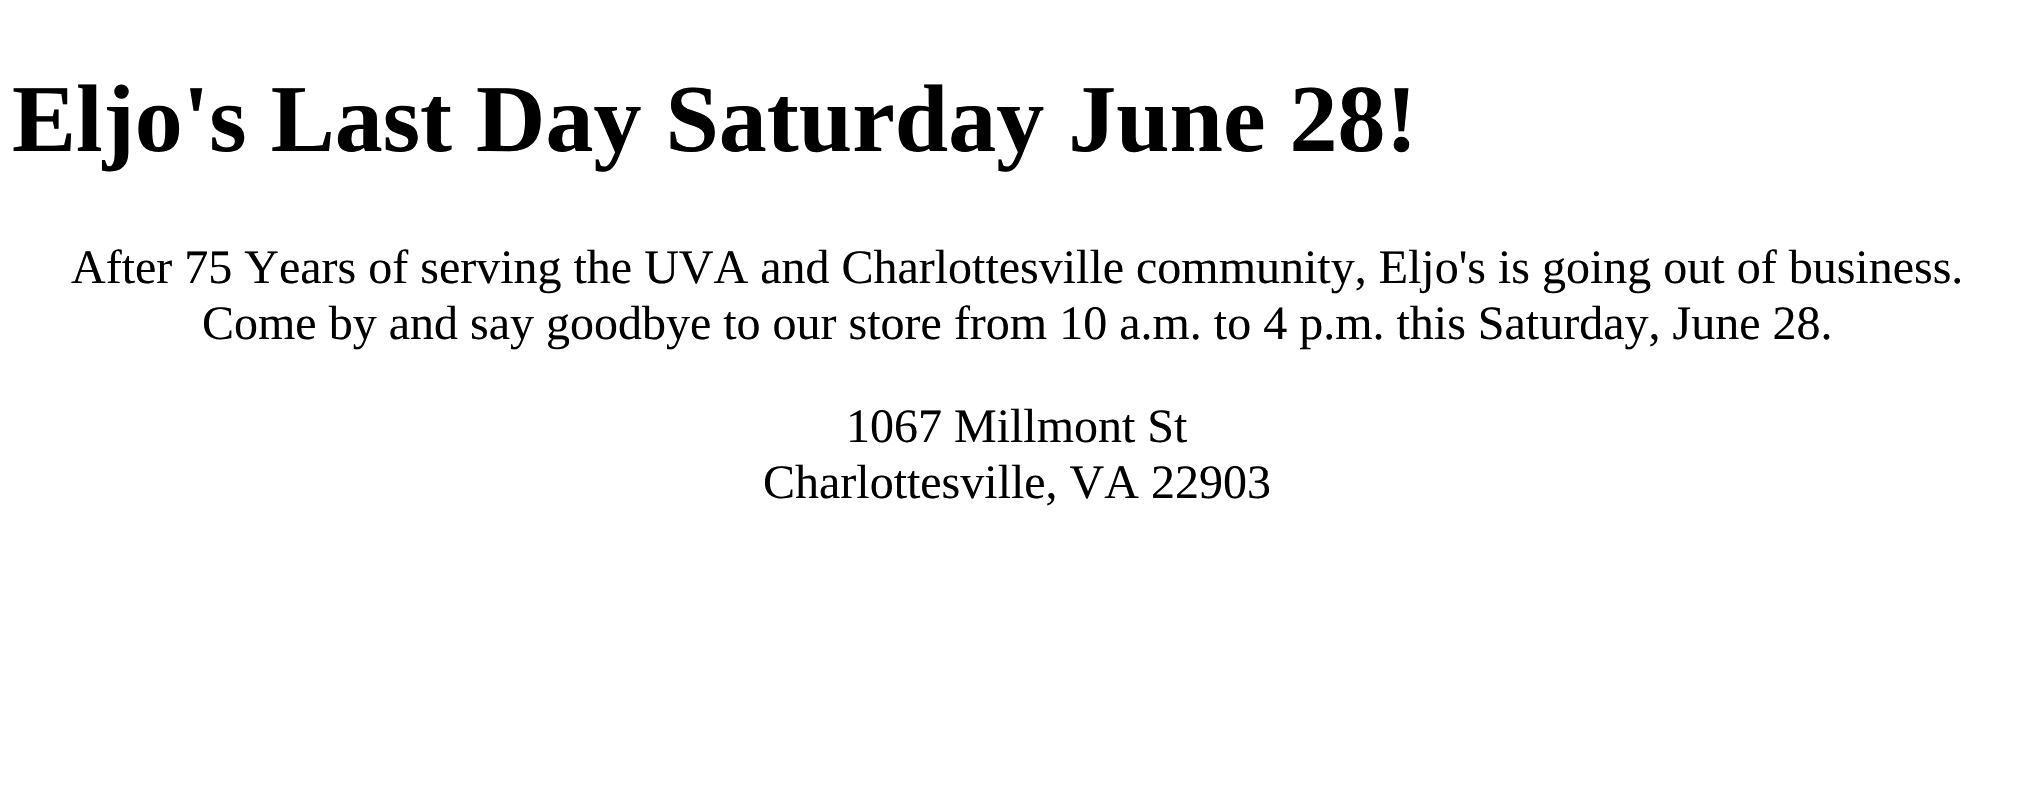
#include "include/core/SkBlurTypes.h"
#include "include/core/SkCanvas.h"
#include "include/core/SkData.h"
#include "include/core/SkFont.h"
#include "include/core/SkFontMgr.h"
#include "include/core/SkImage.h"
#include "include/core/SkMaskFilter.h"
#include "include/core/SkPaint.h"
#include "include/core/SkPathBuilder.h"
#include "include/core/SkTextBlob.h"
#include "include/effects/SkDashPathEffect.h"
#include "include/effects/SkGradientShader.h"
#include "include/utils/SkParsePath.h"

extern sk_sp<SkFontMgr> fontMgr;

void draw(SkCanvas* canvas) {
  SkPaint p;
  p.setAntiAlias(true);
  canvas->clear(SK_ColorWHITE);
  SkFont font1(fontMgr->matchFamilyStyle("Liberation Serif", SkFontStyle::Bold()), 96);
  font1.setSubpixel(true);
  p.setColor(SK_ColorBLACK);
  canvas->drawString("Eljo's Last Day Saturday June 28!", 12, 151, font1, p);
  SkFont font2(fontMgr->matchFamilyStyle("Liberation Serif", SkFontStyle::Normal()), 48);
  font2.setSubpixel(true);
  canvas->drawString("After 75 Years of serving the UVA and Charlottesville community, Eljo's is going out of business.", 71, 283, font2, p);
  canvas->drawString("Come by and say goodbye to our store from 10 a.m. to 4 p.m. this Saturday, June 28.", 202, 339, font2, p);
  canvas->drawString("1067 Millmont St", 846, 442, font2, p);
  canvas->drawString("Charlottesville, VA 22903", 763, 498, font2, p);
}
